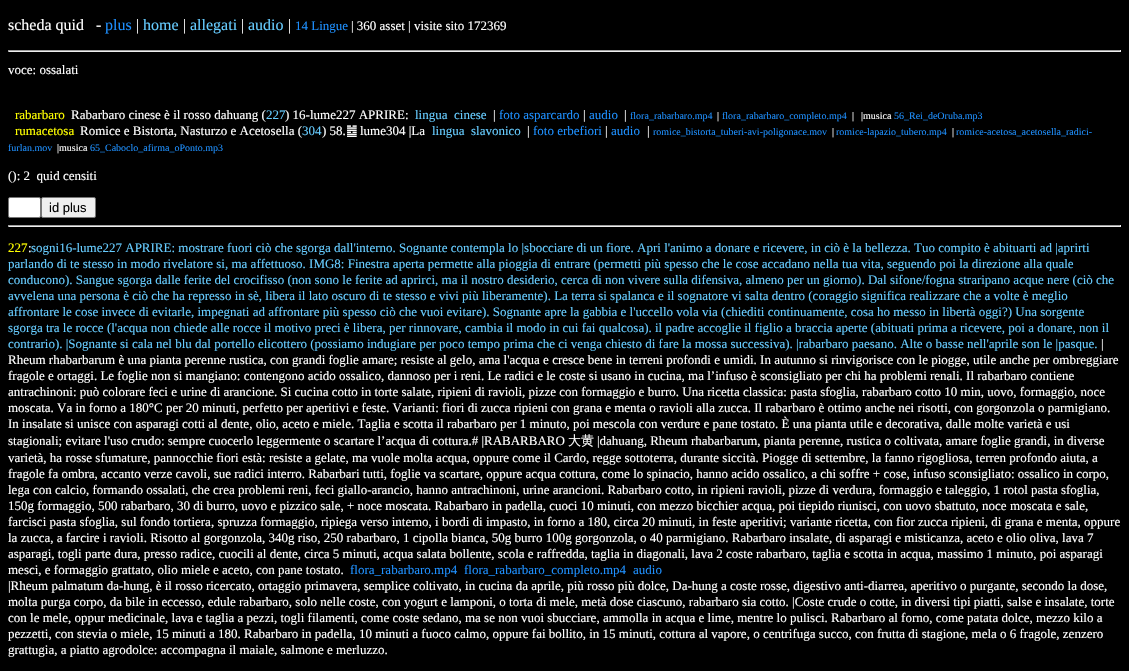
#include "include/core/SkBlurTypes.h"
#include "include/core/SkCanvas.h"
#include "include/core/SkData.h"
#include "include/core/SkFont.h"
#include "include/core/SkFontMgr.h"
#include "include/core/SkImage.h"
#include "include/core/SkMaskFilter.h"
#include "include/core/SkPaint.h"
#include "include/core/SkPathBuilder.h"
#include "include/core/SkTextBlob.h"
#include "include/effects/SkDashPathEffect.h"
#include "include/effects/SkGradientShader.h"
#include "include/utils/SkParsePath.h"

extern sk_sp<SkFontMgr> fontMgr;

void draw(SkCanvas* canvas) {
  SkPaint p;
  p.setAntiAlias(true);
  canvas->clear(SK_ColorBLACK);
  p.setColor(SkColorSetRGB(159, 159, 159));
  canvas->drawRect(SkRect::MakeLTRB(8, 50, 1121, 51), p);
  p.setColor(SkColorSetRGB(238, 238, 238));
  canvas->drawRect(SkRect::MakeLTRB(1120, 50, 1121, 52), p);
  canvas->drawRect(SkRect::MakeLTRB(8, 51, 1121, 52), p);
  p.setColor(SkColorSetRGB(159, 159, 159));
  canvas->drawRect(SkRect::MakeLTRB(8, 50, 9, 52), p);
  p.setColor(SK_ColorWHITE);
  canvas->drawRoundRect(SkRect::MakeLTRB(8.5f, 197.5f, 40.5f, 217.5f), 1.5f, 1.5f, p);
  p.setStyle(SkPaint::kStroke_Style);
  p.setStrokeWidth(1);
  p.setColor(SkColorSetRGB(118, 118, 118));
  canvas->drawRoundRect(SkRect::MakeLTRB(8.5f, 197.5f, 40.5f, 217.5f), 1.5f, 1.5f, p);
  p.setStyle(SkPaint::kFill_Style);
  p.setColor(SkColorSetRGB(239, 239, 239));
  canvas->drawRoundRect(SkRect::MakeLTRB(41.5f, 197.5f, 95.5f, 217.5f), 1.5f, 1.5f, p);
  p.setStyle(SkPaint::kStroke_Style);
  p.setColor(SkColorSetRGB(118, 118, 118));
  canvas->drawRoundRect(SkRect::MakeLTRB(41.5f, 197.5f, 95.5f, 217.5f), 1.5f, 1.5f, p);
  p.setStyle(SkPaint::kFill_Style);
  p.setColor(SkColorSetRGB(159, 159, 159));
  canvas->drawRect(SkRect::MakeLTRB(8, 225, 1121, 226), p);
  p.setColor(SkColorSetRGB(238, 238, 238));
  canvas->drawRect(SkRect::MakeLTRB(1120, 225, 1121, 227), p);
  canvas->drawRect(SkRect::MakeLTRB(8, 226, 1121, 227), p);
  p.setColor(SkColorSetRGB(159, 159, 159));
  canvas->drawRect(SkRect::MakeLTRB(8, 225, 9, 227), p);
  SkFont font1(fontMgr->matchFamilyStyle("Liberation Serif", SkFontStyle::Normal()), 16);
  font1.setSubpixel(true);
  p.setColor(SK_ColorWHITE);
  canvas->drawString("scheda quid  -", 8, 30, font1, p);
  p.setColor(SkColorSetRGB(30, 144, 255));
  canvas->drawString("plus", 105, 30, font1, p);
  p.setColor(SK_ColorWHITE);
  canvas->drawString("|", 136, 30, font1, p);
  p.setColor(SkColorSetRGB(102, 204, 255));
  canvas->drawString("home", 143, 30, font1, p);
  p.setColor(SK_ColorWHITE);
  canvas->drawString("|", 183, 30, font1, p);
  p.setColor(SkColorSetRGB(102, 204, 255));
  canvas->drawString("allegati", 190, 30, font1, p);
  p.setColor(SK_ColorWHITE);
  canvas->drawString("|", 241, 30, font1, p);
  p.setColor(SkColorSetRGB(102, 204, 255));
  canvas->drawString("audio", 248, 30, font1, p);
  p.setColor(SK_ColorWHITE);
  canvas->drawString("|", 288, 30, font1, p);
  SkFont font2(fontMgr->matchFamilyStyle("Liberation Serif", SkFontStyle::Normal()), 13);
  font2.setSubpixel(true);
  p.setColor(SkColorSetRGB(30, 144, 255));
  canvas->drawString("14 Lingue", 295, 30, font2, p);
  p.setColor(SK_ColorWHITE);
  canvas->drawString("| 360 asset | visite sito 172369", 351, 30, font2, p);
  canvas->drawString("voce: ossalati", 8, 74, font2, p);
  p.setColor(SkColorSetRGB(255, 255, 0));
  canvas->drawString("rabarbaro", 15, 119, font2, p);
  p.setColor(SK_ColorWHITE);
  canvas->drawString("Rabarbaro cinese è il rosso dahuang (", 71, 119, font2, p);
  p.setColor(SkColorSetRGB(102, 204, 255));
  canvas->drawString("227", 266, 119, font2, p);
  p.setColor(SK_ColorWHITE);
  canvas->drawString(") 16-lume227 APRIRE:", 285, 119, font2, p);
  p.setColor(SkColorSetRGB(102, 204, 255));
  canvas->drawString("lingua cinese", 415, 119, font2, p);
  p.setColor(SK_ColorWHITE);
  canvas->drawString("|", 493, 119, font2, p);
  p.setColor(SkColorSetRGB(30, 144, 255));
  canvas->drawString("foto asparcardo", 499, 119, font2, p);
  p.setColor(SK_ColorWHITE);
  canvas->drawString("|", 583, 119, font2, p);
  p.setColor(SkColorSetRGB(30, 144, 255));
  canvas->drawString("audio", 589, 119, font2, p);
  p.setColor(SK_ColorWHITE);
  canvas->drawString("|", 624, 119, font2, p);
  SkFont font3(fontMgr->matchFamilyStyle("Liberation Serif", SkFontStyle::Normal()), 10);
  font3.setSubpixel(true);
  p.setColor(SkColorSetRGB(30, 144, 255));
  canvas->drawString("flora_rabarbaro.mp4", 630, 119, font3, p);
  p.setColor(SK_ColorWHITE);
  canvas->drawString("|", 717, 119, font3, p);
  p.setColor(SkColorSetRGB(30, 144, 255));
  canvas->drawString("flora_rabarbaro_completo.mp4", 722, 119, font3, p);
  p.setColor(SK_ColorWHITE);
  canvas->drawString("|", 852, 119, font3, p);
  canvas->drawString("|musica", 861, 119, font3, p);
  p.setColor(SkColorSetRGB(30, 144, 255));
  canvas->drawString("56_Rei_deOruba.mp3", 894, 119, font3, p);
  p.setColor(SkColorSetRGB(255, 255, 0));
  canvas->drawString("rumacetosa", 15, 135, font2, p);
  p.setColor(SK_ColorWHITE);
  canvas->drawString("Romice e Bistorta, Nasturzo e Acetosella (", 80, 135, font2, p);
  p.setColor(SkColorSetRGB(102, 204, 255));
  canvas->drawString("304", 302, 135, font2, p);
  p.setColor(SK_ColorWHITE);
  canvas->drawString(") 58.", 322, 135, font2, p);
  SkFont font4(fontMgr->matchFamilyStyle("DejaVu Sans", SkFontStyle::Normal()), 13);
  font4.setSubpixel(true);
  canvas->drawString("䷹", 346, 135, font4, p);
  canvas->drawString("lume304 |La", 360, 135, font2, p);
  p.setColor(SkColorSetRGB(102, 204, 255));
  canvas->drawString("lingua slavonico", 432, 135, font2, p);
  p.setColor(SK_ColorWHITE);
  canvas->drawString("|", 527, 135, font2, p);
  p.setColor(SkColorSetRGB(30, 144, 255));
  canvas->drawString("foto erbefiori", 533, 135, font2, p);
  p.setColor(SK_ColorWHITE);
  canvas->drawString("|", 605, 135, font2, p);
  p.setColor(SkColorSetRGB(30, 144, 255));
  canvas->drawString("audio", 611, 135, font2, p);
  p.setColor(SK_ColorWHITE);
  canvas->drawString("|", 647, 135, font2, p);
  p.setColor(SkColorSetRGB(30, 144, 255));
  canvas->drawString("romice_bistorta_tuberi-avi-poligonace.mov", 653, 135, font3, p);
  p.setColor(SK_ColorWHITE);
  canvas->drawString("|", 832, 135, font3, p);
  p.setColor(SkColorSetRGB(30, 144, 255));
  canvas->drawString("romice-lapazio_tubero.mp4", 836, 135, font3, p);
  p.setColor(SK_ColorWHITE);
  canvas->drawString("|", 952, 135, font3, p);
  p.setColor(SkColorSetRGB(30, 144, 255));
  canvas->drawString("romice-acetosa_acetosella_radici-", 956, 135, font3, p);
  canvas->drawString("furlan.mov", 8, 151, font3, p);
  p.setColor(SK_ColorWHITE);
  canvas->drawString("|musica", 57, 151, font3, p);
  p.setColor(SkColorSetRGB(30, 144, 255));
  canvas->drawString("65_Caboclo_afirma_oPonto.mp3", 90, 151, font3, p);
  p.setColor(SK_ColorWHITE);
  canvas->drawString("(): 2 quid censiti", 8, 180, font2, p);
  SkFont font5(fontMgr->matchFamilyStyle("Liberation Sans", SkFontStyle::Normal()), 13);
  font5.setSubpixel(true);
  p.setColor(SK_ColorBLACK);
  canvas->drawString("id plus", 49, 212, font5, p);
  p.setColor(SkColorSetRGB(255, 255, 0));
  canvas->drawString("227", 8, 252, font2, p);
  p.setColor(SK_ColorWHITE);
  canvas->drawString(":", 28, 252, font2, p);
  p.setColor(SkColorSetRGB(102, 204, 255));
  canvas->drawString("sogni16-lume227 APRIRE: mostrare fuori ciò che sgorga dall'interno. Sognante contempla lo |sbocciare di un fiore. Apri l'animo a donare e ricevere, in ciò è la bellezza. Tuo compito è abituarti ad |aprirti", 31, 252, font2, p);
  canvas->drawString("parlando di te stesso in modo rivelatore si, ma affettuoso. IMG8: Finestra aperta permette alla pioggia di entrare (permetti più spesso che le cose accadano nella tua vita, seguendo poi la direzione alla quale", 8, 268, font2, p);
  canvas->drawString("conducono). Sangue sgorga dalle ferite del crocifisso (non sono le ferite ad aprirci, ma il nostro desiderio, cerca di non vivere sulla difensiva, almeno per un giorno). Dal sifone/fogna straripano acque nere (ciò che", 8, 284, font2, p);
  canvas->drawString("avvelena una persona è ciò che ha represso in sè, libera il lato oscuro di te stesso e vivi più liberamente). La terra si spalanca e il sognatore vi salta dentro (coraggio significa realizzare che a volte è meglio", 8, 300, font2, p);
  canvas->drawString("affrontare le cose invece di evitarle, impegnati ad affrontare più spesso ciò che vuoi evitare). Sognante apre la gabbia e l'uccello vola via (chiediti continuamente, cosa ho messo in libertà oggi?) Una sorgente", 8, 316, font2, p);
  canvas->drawString("sgorga tra le rocce (l'acqua non chiede alle rocce il motivo preci è libera, per rinnovare, cambia il modo in cui fai qualcosa). il padre accoglie il figlio a braccia aperte (abituati prima a ricevere, poi a donare, non il", 8, 332, font2, p);
  canvas->drawString("contrario). |Sognante si cala nel blu dal portello elicottero (possiamo indugiare per poco tempo prima che ci venga chiesto di fare la mossa successiva). |rabarbaro paesano. Alte o basse nell'aprile son le |pasque.", 8, 348, font2, p);
  p.setColor(SK_ColorWHITE);
  canvas->drawString("|", 1101, 348, font2, p);
  canvas->drawString("Rheum rhabarbarum è una pianta perenne rustica, con grandi foglie amare; resiste al gelo, ama l'acqua e cresce bene in terreni profondi e umidi. In autunno si rinvigorisce con le piogge, utile anche per ombreggiare", 8, 364, font2, p);
  canvas->drawString("fragole e ortaggi. Le foglie non si mangiano: contengono acido ossalico, dannoso per i reni. Le radici e le coste si usano in cucina, ma l’infuso è sconsigliato per chi ha problemi renali. Il rabarbaro contiene", 8, 380, font2, p);
  canvas->drawString("antrachinoni: può colorare feci e urine di arancione. Si cucina cotto in torte salate, ripieni di ravioli, pizze con formaggio e burro. Una ricetta classica: pasta sfoglia, rabarbaro cotto 10 min, uovo, formaggio, noce", 8, 396, font2, p);
  canvas->drawString("moscata. Va in forno a 180°C per 20 minuti, perfetto per aperitivi e feste. Varianti: fiori di zucca ripieni con grana e menta o ravioli alla zucca. Il rabarbaro è ottimo anche nei risotti, con gorgonzola o parmigiano.", 8, 412, font2, p);
  canvas->drawString("In insalate si unisce con asparagi cotti al dente, olio, aceto e miele. Taglia e scotta il rabarbaro per 1 minuto, poi mescola con verdure e pane tostato. È una pianta utile e decorativa, dalle molte varietà e usi", 8, 428, font2, p);
  canvas->drawString("stagionali; evitare l'uso crudo: sempre cuocerlo leggermente o scartare l’acqua di cottura.# |RABARBARO", 8, 445, font2, p);
  SkFont font6(fontMgr->matchFamilyStyle("WenQuanYi Zen Hei", SkFontStyle(500, SkFontStyle::kNormal_Width, SkFontStyle::kUpright_Slant)), 13);
  font6.setSubpixel(true);
  canvas->drawString("大黄", 568, 445, font6, p);
  canvas->drawString("|dahuang, Rheum rhabarbarum, pianta perenne, rustica o coltivata, amare foglie grandi, in diverse", 597, 445, font2, p);
  canvas->drawString("varietà, ha rosse sfumature, pannocchie fiori està: resiste a gelate, ma vuole molta acqua, oppure come il Cardo, regge sottoterra, durante siccità. Piogge di settembre, la fanno rigogliosa, terren profondo aiuta, a", 8, 462, font2, p);
  canvas->drawString("fragole fa ombra, accanto verze cavoli, sue radici interro. Rabarbari tutti, foglie va scartare, oppure acqua cottura, come lo spinacio, hanno acido ossalico, a chi soffre + cose, infuso sconsigliato: ossalico in corpo,", 8, 478, font2, p);
  canvas->drawString("lega con calcio, formando ossalati, che crea problemi reni, feci giallo-arancio, hanno antrachinoni, urine arancioni. Rabarbaro cotto, in ripieni ravioli, pizze di verdura, formaggio e taleggio, 1 rotol pasta sfoglia,", 8, 494, font2, p);
  canvas->drawString("150g formaggio, 500 rabarbaro, 30 di burro, uovo e pizzico sale, + noce moscata. Rabarbaro in padella, cuoci 10 minuti, con mezzo bicchier acqua, poi tiepido riunisci, con uovo sbattuto, noce moscata e sale,", 8, 510, font2, p);
  canvas->drawString("farcisci pasta sfoglia, sul fondo tortiera, spruzza formaggio, ripiega verso interno, i bordi di impasto, in forno a 180, circa 20 minuti, in feste aperitivi; variante ricetta, con fior zucca ripieni, di grana e menta, oppure", 8, 526, font2, p);
  canvas->drawString("la zucca, a farcire i ravioli. Risotto al gorgonzola, 340g riso, 250 rabarbaro, 1 cipolla bianca, 50g burro 100g gorgonzola, o 40 parmigiano. Rabarbaro insalate, di asparagi e misticanza, aceto e olio oliva, lava 7", 8, 542, font2, p);
  canvas->drawString("asparagi, togli parte dura, presso radice, cuocili al dente, circa 5 minuti, acqua salata bollente, scola e raffredda, taglia in diagonali, lava 2 coste rabarbaro, taglia e scotta in acqua, massimo 1 minuto, poi asparagi", 8, 558, font2, p);
  canvas->drawString("mesci, e formaggio grattato, olio miele e aceto, con pane tostato.", 8, 574, font2, p);
  p.setColor(SkColorSetRGB(30, 144, 255));
  canvas->drawString("flora_rabarbaro.mp4", 350, 574, font2, p);
  canvas->drawString("flora_rabarbaro_completo.mp4", 464, 574, font2, p);
  canvas->drawString("audio", 633, 574, font2, p);
  p.setColor(SK_ColorWHITE);
  canvas->drawString("|Rheum palmatum da-hung, è il rosso ricercato, ortaggio primavera, semplice coltivato, in cucina da aprile, più rosso più dolce, Da-hung a coste rosse, digestivo anti-diarrea, aperitivo o purgante, secondo la dose,", 8, 590, font2, p);
  canvas->drawString("molta purga corpo, da bile in eccesso, edule rabarbaro, solo nelle coste, con yogurt e lamponi, o torta di mele, metà dose ciascuno, rabarbaro sia cotto. |Coste crude o cotte, in diversi tipi piatti, salse e insalate, torte", 8, 606, font2, p);
  canvas->drawString("con le mele, oppur medicinale, lava e taglia a pezzi, togli filamenti, come coste sedano, ma se non vuoi sbucciare, ammolla in acqua e lime, mentre lo pulisci. Rabarbaro al forno, come patata dolce, mezzo kilo a", 8, 622, font2, p);
  canvas->drawString("pezzetti, con stevia o miele, 15 minuti a 180. Rabarbaro in padella, 10 minuti a fuoco calmo, oppure fai bollito, in 15 minuti, cottura al vapore, o centrifuga succo, con frutta di stagione, mela o 6 fragole, zenzero", 8, 638, font2, p);
  canvas->drawString("grattugia, a piatto agrodolce: accompagna il maiale, salmone e merluzzo.", 8, 654, font2, p);
}
